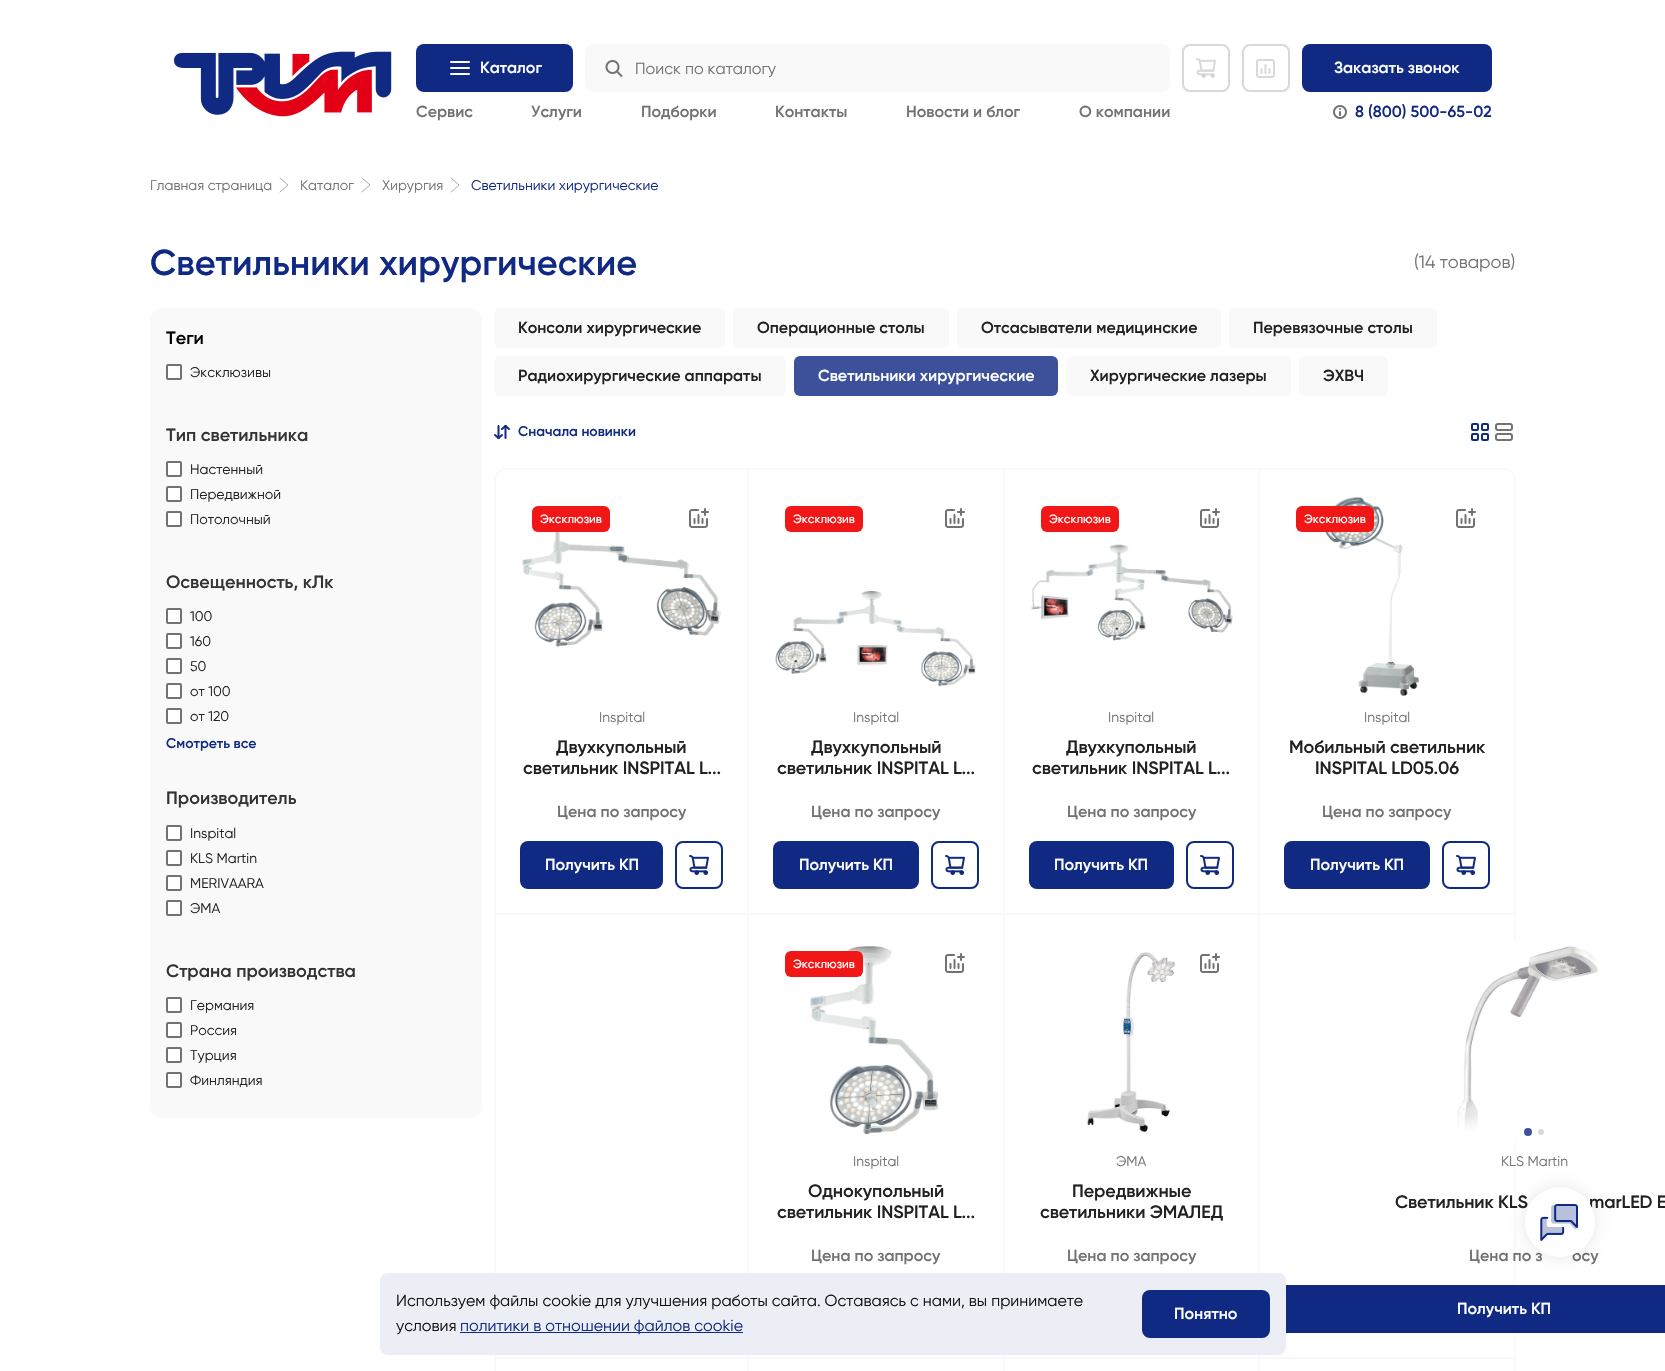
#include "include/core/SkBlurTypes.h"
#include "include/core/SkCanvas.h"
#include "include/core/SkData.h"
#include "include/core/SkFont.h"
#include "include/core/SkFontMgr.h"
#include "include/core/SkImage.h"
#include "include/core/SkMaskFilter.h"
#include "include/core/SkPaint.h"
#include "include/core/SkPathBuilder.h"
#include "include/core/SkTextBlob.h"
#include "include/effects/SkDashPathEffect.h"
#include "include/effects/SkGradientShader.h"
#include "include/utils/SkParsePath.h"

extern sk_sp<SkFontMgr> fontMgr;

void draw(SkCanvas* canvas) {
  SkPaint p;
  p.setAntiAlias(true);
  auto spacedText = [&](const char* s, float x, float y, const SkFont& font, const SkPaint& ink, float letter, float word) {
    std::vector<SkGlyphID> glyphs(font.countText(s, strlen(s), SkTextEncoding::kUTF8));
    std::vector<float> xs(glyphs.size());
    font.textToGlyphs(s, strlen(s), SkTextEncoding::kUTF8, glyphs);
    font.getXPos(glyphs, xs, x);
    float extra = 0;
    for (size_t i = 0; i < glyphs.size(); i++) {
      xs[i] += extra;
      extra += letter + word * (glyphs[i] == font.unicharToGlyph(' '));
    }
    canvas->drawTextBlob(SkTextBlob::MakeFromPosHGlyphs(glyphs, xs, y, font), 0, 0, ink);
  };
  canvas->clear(SK_ColorWHITE);
  canvas->drawImageRect(SkImages::DeferredFromEncodedData(SkData::MakeFromFileName("images/1.png")), SkRect::MakeLTRB(174, 51, 392, 117), SkSamplingOptions());
  p.setColor(SkColorSetRGB(16, 42, 131));
  canvas->drawRoundRect(SkRect::MakeLTRB(416, 44, 573, 92), 8, 8, p);
  p.setColor(SK_ColorWHITE);
  canvas->drawRoundRect(SkRect::MakeLTRB(450, 67, 470, 69), 1, 1, p);
  canvas->drawRoundRect(SkRect::MakeLTRB(450, 61, 470, 63), 1, 1, p);
  canvas->drawRoundRect(SkRect::MakeLTRB(450, 73, 470, 75), 1, 1, p);
  p.setColor(SkColorSetRGB(249, 249, 249));
  canvas->drawRoundRect(SkRect::MakeLTRB(585, 44, 1170, 92), 8, 8, p);
  canvas->drawImageRect(SkImages::DeferredFromEncodedData(SkData::MakeFromFileName("images/2.png")), SkRect::MakeLTRB(605, 60, 623, 77), SkSamplingOptions());
  p.setStyle(SkPaint::kStroke_Style);
  p.setStrokeWidth(2);
  p.setColor(SkColorSetRGB(217, 217, 217));
  canvas->drawRoundRect(SkRect::MakeLTRB(1183, 45, 1229, 91), 7, 7, p);
  canvas->drawImageRect(SkImages::DeferredFromEncodedData(SkData::MakeFromFileName("images/3.png")), SkRect::MakeLTRB(1196, 58, 1216, 78), SkSamplingOptions());
  canvas->drawRoundRect(SkRect::MakeLTRB(1243, 45, 1289, 91), 7, 7, p);
  canvas->drawImageRect(SkImages::DeferredFromEncodedData(SkData::MakeFromFileName("images/4.png")), SkRect::MakeLTRB(1256, 59, 1275, 78), SkSamplingOptions());
  p.setStyle(SkPaint::kFill_Style);
  p.setColor(SkColorSetRGB(16, 42, 131));
  canvas->drawRoundRect(SkRect::MakeLTRB(1302, 44, 1492, 92), 8, 8, p);
  canvas->drawImageRect(SkImages::DeferredFromEncodedData(SkData::MakeFromFileName("images/5.png")), SkRect::MakeLTRB(1333, 105, 1347, 119), SkSamplingOptions());
  p.setStyle(SkPaint::kStroke_Style);
  p.setStrokeWidth(1);
  p.setStrokeCap(SkPaint::kRound_Cap);
  p.setStrokeJoin(SkPaint::kRound_Join);
  p.setColor(SkColorSetRGB(170, 170, 170));
  canvas->drawPath(SkPathBuilder().moveTo(280, 192).lineTo(288, 185).lineTo(280, 178).detach(), p);
  canvas->drawPath(SkPathBuilder().moveTo(362, 192).lineTo(370, 185).lineTo(362, 178).detach(), p);
  canvas->drawPath(SkPathBuilder().moveTo(451, 192).lineTo(459, 185).lineTo(451, 178).detach(), p);
  p.setStyle(SkPaint::kFill_Style);
  p.setColor(SkColorSetRGB(249, 249, 249));
  canvas->drawRoundRect(SkRect::MakeLTRB(150, 308, 482, 1118), 12, 12, p);
  p.setColor(SK_ColorWHITE);
  canvas->drawRoundRect(SkRect::MakeLTRB(167, 365, 181, 379), 1, 1, p);
  p.setStyle(SkPaint::kStroke_Style);
  p.setStrokeWidth(2);
  p.setStrokeCap(SkPaint::kButt_Cap);
  p.setStrokeJoin(SkPaint::kMiter_Join);
  p.setColor(SkColorSetRGB(114, 114, 114));
  canvas->drawRoundRect(SkRect::MakeLTRB(167, 365, 181, 379), 1, 1, p);
  p.setStyle(SkPaint::kFill_Style);
  p.setColor(SK_ColorWHITE);
  canvas->drawRoundRect(SkRect::MakeLTRB(167, 462, 181, 476), 1, 1, p);
  p.setStyle(SkPaint::kStroke_Style);
  p.setColor(SkColorSetRGB(114, 114, 114));
  canvas->drawRoundRect(SkRect::MakeLTRB(167, 462, 181, 476), 1, 1, p);
  p.setStyle(SkPaint::kFill_Style);
  p.setColor(SK_ColorWHITE);
  canvas->drawRoundRect(SkRect::MakeLTRB(167, 487, 181, 501), 1, 1, p);
  p.setStyle(SkPaint::kStroke_Style);
  p.setColor(SkColorSetRGB(114, 114, 114));
  canvas->drawRoundRect(SkRect::MakeLTRB(167, 487, 181, 501), 1, 1, p);
  p.setStyle(SkPaint::kFill_Style);
  p.setColor(SK_ColorWHITE);
  canvas->drawRoundRect(SkRect::MakeLTRB(167, 512, 181, 526), 1, 1, p);
  p.setStyle(SkPaint::kStroke_Style);
  p.setColor(SkColorSetRGB(114, 114, 114));
  canvas->drawRoundRect(SkRect::MakeLTRB(167, 512, 181, 526), 1, 1, p);
  p.setStyle(SkPaint::kFill_Style);
  p.setColor(SK_ColorWHITE);
  canvas->drawRoundRect(SkRect::MakeLTRB(167, 609, 181, 623), 1, 1, p);
  p.setStyle(SkPaint::kStroke_Style);
  p.setColor(SkColorSetRGB(114, 114, 114));
  canvas->drawRoundRect(SkRect::MakeLTRB(167, 609, 181, 623), 1, 1, p);
  p.setStyle(SkPaint::kFill_Style);
  p.setColor(SK_ColorWHITE);
  canvas->drawRoundRect(SkRect::MakeLTRB(167, 634, 181, 648), 1, 1, p);
  p.setStyle(SkPaint::kStroke_Style);
  p.setColor(SkColorSetRGB(114, 114, 114));
  canvas->drawRoundRect(SkRect::MakeLTRB(167, 634, 181, 648), 1, 1, p);
  p.setStyle(SkPaint::kFill_Style);
  p.setColor(SK_ColorWHITE);
  canvas->drawRoundRect(SkRect::MakeLTRB(167, 659, 181, 673), 1, 1, p);
  p.setStyle(SkPaint::kStroke_Style);
  p.setColor(SkColorSetRGB(114, 114, 114));
  canvas->drawRoundRect(SkRect::MakeLTRB(167, 659, 181, 673), 1, 1, p);
  p.setStyle(SkPaint::kFill_Style);
  p.setColor(SK_ColorWHITE);
  canvas->drawRoundRect(SkRect::MakeLTRB(167, 684, 181, 698), 1, 1, p);
  p.setStyle(SkPaint::kStroke_Style);
  p.setColor(SkColorSetRGB(114, 114, 114));
  canvas->drawRoundRect(SkRect::MakeLTRB(167, 684, 181, 698), 1, 1, p);
  p.setStyle(SkPaint::kFill_Style);
  p.setColor(SK_ColorWHITE);
  canvas->drawRoundRect(SkRect::MakeLTRB(167, 709, 181, 723), 1, 1, p);
  p.setStyle(SkPaint::kStroke_Style);
  p.setColor(SkColorSetRGB(114, 114, 114));
  canvas->drawRoundRect(SkRect::MakeLTRB(167, 709, 181, 723), 1, 1, p);
  p.setStyle(SkPaint::kFill_Style);
  p.setColor(SK_ColorWHITE);
  canvas->drawRoundRect(SkRect::MakeLTRB(167, 826, 181, 840), 1, 1, p);
  p.setStyle(SkPaint::kStroke_Style);
  p.setColor(SkColorSetRGB(114, 114, 114));
  canvas->drawRoundRect(SkRect::MakeLTRB(167, 826, 181, 840), 1, 1, p);
  p.setStyle(SkPaint::kFill_Style);
  p.setColor(SK_ColorWHITE);
  canvas->drawRoundRect(SkRect::MakeLTRB(167, 851, 181, 865), 1, 1, p);
  p.setStyle(SkPaint::kStroke_Style);
  p.setColor(SkColorSetRGB(114, 114, 114));
  canvas->drawRoundRect(SkRect::MakeLTRB(167, 851, 181, 865), 1, 1, p);
  p.setStyle(SkPaint::kFill_Style);
  p.setColor(SK_ColorWHITE);
  canvas->drawRoundRect(SkRect::MakeLTRB(167, 876, 181, 890), 1, 1, p);
  p.setStyle(SkPaint::kStroke_Style);
  p.setColor(SkColorSetRGB(114, 114, 114));
  canvas->drawRoundRect(SkRect::MakeLTRB(167, 876, 181, 890), 1, 1, p);
  p.setStyle(SkPaint::kFill_Style);
  p.setColor(SK_ColorWHITE);
  canvas->drawRoundRect(SkRect::MakeLTRB(167, 901, 181, 915), 1, 1, p);
  p.setStyle(SkPaint::kStroke_Style);
  p.setColor(SkColorSetRGB(114, 114, 114));
  canvas->drawRoundRect(SkRect::MakeLTRB(167, 901, 181, 915), 1, 1, p);
  p.setStyle(SkPaint::kFill_Style);
  p.setColor(SK_ColorWHITE);
  canvas->drawRoundRect(SkRect::MakeLTRB(167, 998, 181, 1012), 1, 1, p);
  p.setStyle(SkPaint::kStroke_Style);
  p.setColor(SkColorSetRGB(114, 114, 114));
  canvas->drawRoundRect(SkRect::MakeLTRB(167, 998, 181, 1012), 1, 1, p);
  p.setStyle(SkPaint::kFill_Style);
  p.setColor(SK_ColorWHITE);
  canvas->drawRoundRect(SkRect::MakeLTRB(167, 1023, 181, 1037), 1, 1, p);
  p.setStyle(SkPaint::kStroke_Style);
  p.setColor(SkColorSetRGB(114, 114, 114));
  canvas->drawRoundRect(SkRect::MakeLTRB(167, 1023, 181, 1037), 1, 1, p);
  p.setStyle(SkPaint::kFill_Style);
  p.setColor(SK_ColorWHITE);
  canvas->drawRoundRect(SkRect::MakeLTRB(167, 1048, 181, 1062), 1, 1, p);
  p.setStyle(SkPaint::kStroke_Style);
  p.setColor(SkColorSetRGB(114, 114, 114));
  canvas->drawRoundRect(SkRect::MakeLTRB(167, 1048, 181, 1062), 1, 1, p);
  p.setStyle(SkPaint::kFill_Style);
  p.setColor(SK_ColorWHITE);
  canvas->drawRoundRect(SkRect::MakeLTRB(167, 1073, 181, 1087), 1, 1, p);
  p.setStyle(SkPaint::kStroke_Style);
  p.setColor(SkColorSetRGB(114, 114, 114));
  canvas->drawRoundRect(SkRect::MakeLTRB(167, 1073, 181, 1087), 1, 1, p);
  p.setStyle(SkPaint::kFill_Style);
  p.setColor(SkColorSetRGB(249, 249, 249));
  canvas->drawRoundRect(SkRect::MakeLTRB(494, 308, 725, 348), 6, 6, p);
  canvas->drawRoundRect(SkRect::MakeLTRB(733, 308, 949, 348), 6, 6, p);
  canvas->drawRoundRect(SkRect::MakeLTRB(957, 308, 1221, 348), 6, 6, p);
  canvas->drawRoundRect(SkRect::MakeLTRB(1229, 308, 1437, 348), 6, 6, p);
  canvas->drawRoundRect(SkRect::MakeLTRB(494, 356, 786, 396), 6, 6, p);
  p.setColor(SkColorSetRGB(60, 81, 153));
  canvas->drawRoundRect(SkRect::MakeLTRB(794, 356, 1058, 396), 6, 6, p);
  p.setColor(SkColorSetRGB(249, 249, 249));
  canvas->drawRoundRect(SkRect::MakeLTRB(1066, 356, 1291, 396), 6, 6, p);
  canvas->drawRoundRect(SkRect::MakeLTRB(1299, 356, 1388, 396), 6, 6, p);
  canvas->drawImageRect(SkImages::DeferredFromEncodedData(SkData::MakeFromFileName("images/6.png")), SkRect::MakeLTRB(494, 425, 510, 439), SkSamplingOptions());
  p.setStyle(SkPaint::kStroke_Style);
  p.setColor(SkColorSetRGB(16, 42, 131));
  canvas->drawRoundRect(SkRect::MakeLTRB(1472, 424, 1478, 430), 1, 1, p);
  canvas->drawRoundRect(SkRect::MakeLTRB(1482, 424, 1488, 430), 1, 1, p);
  canvas->drawRoundRect(SkRect::MakeLTRB(1472, 434, 1478, 440), 1, 1, p);
  canvas->drawRoundRect(SkRect::MakeLTRB(1482, 434, 1488, 440), 1, 1, p);
  p.setColor(SkColorSetRGB(114, 114, 114));
  canvas->drawRoundRect(SkRect::MakeLTRB(1496, 424, 1512, 430), 2, 2, p);
  canvas->drawRoundRect(SkRect::MakeLTRB(1496, 434, 1512, 440), 2, 2, p);
  p.setColor(SkColorSetRGB(249, 249, 249));
  canvas->drawPath(SkPathBuilder().moveTo(506, 469).lineTo(748, 469).lineTo(748, 914).lineTo(495, 914).lineTo(495, 480).cubicTo(495, 474, 500, 469, 506, 469).close().detach(), p);
  p.setStyle(SkPaint::kFill_Style);
  p.setColor(SkColorSetRGB(241, 23, 22));
  canvas->drawRoundRect(SkRect::MakeLTRB(532, 506, 610, 532), 6, 6, p);
  canvas->drawImageRect(SkImages::DeferredFromEncodedData(SkData::MakeFromFileName("images/7.png")), SkRect::MakeLTRB(522, 532, 722, 647), SkSamplingOptions());
  canvas->drawImageRect(SkImages::DeferredFromEncodedData(SkData::MakeFromFileName("images/8.png")), SkRect::MakeLTRB(689, 508, 709, 528), SkSamplingOptions());
  p.setColor(SkColorSetRGB(16, 42, 131));
  canvas->drawRoundRect(SkRect::MakeLTRB(520, 841, 663, 889), 8, 8, p);
  canvas->drawImageRect(SkImages::DeferredFromEncodedData(SkData::MakeFromFileName("images/9.png")), SkRect::MakeLTRB(689, 855, 709, 875), SkSamplingOptions());
  p.setStyle(SkPaint::kStroke_Style);
  canvas->drawRoundRect(SkRect::MakeLTRB(676, 842, 722, 888), 7, 7, p);
  p.setStyle(SkPaint::kFill_Style);
  p.setColor(SkColorSetRGB(249, 249, 249));
  canvas->drawRect(SkRect::MakeLTRB(749, 468, 1260, 470), p);
  canvas->drawRect(SkRect::MakeLTRB(1003, 468, 1005, 1371), p);
  canvas->drawRect(SkRect::MakeLTRB(749, 913, 1005, 915), p);
  p.setColor(SkColorSetRGB(241, 23, 22));
  canvas->drawRoundRect(SkRect::MakeLTRB(785, 506, 863, 532), 6, 6, p);
  canvas->drawImageRect(SkImages::DeferredFromEncodedData(SkData::MakeFromFileName("images/10.png")), SkRect::MakeLTRB(775, 591, 976, 687), SkSamplingOptions());
  canvas->drawImageRect(SkImages::DeferredFromEncodedData(SkData::MakeFromFileName("images/8.png")), SkRect::MakeLTRB(945, 508, 965, 528), SkSamplingOptions());
  p.setColor(SkColorSetRGB(16, 42, 131));
  canvas->drawRoundRect(SkRect::MakeLTRB(773, 841, 919, 889), 8, 8, p);
  canvas->drawImageRect(SkImages::DeferredFromEncodedData(SkData::MakeFromFileName("images/9.png")), SkRect::MakeLTRB(945, 855, 965, 875), SkSamplingOptions());
  p.setStyle(SkPaint::kStroke_Style);
  canvas->drawRoundRect(SkRect::MakeLTRB(932, 842, 978, 888), 7, 7, p);
  p.setStyle(SkPaint::kFill_Style);
  p.setColor(SkColorSetRGB(249, 249, 249));
  canvas->drawRect(SkRect::MakeLTRB(1258, 468, 1260, 1371), p);
  canvas->drawRect(SkRect::MakeLTRB(1005, 913, 1260, 915), p);
  p.setColor(SkColorSetRGB(241, 23, 22));
  canvas->drawRoundRect(SkRect::MakeLTRB(1041, 506, 1119, 532), 6, 6, p);
  canvas->drawImageRect(SkImages::DeferredFromEncodedData(SkData::MakeFromFileName("images/11.png")), SkRect::MakeLTRB(1031, 544, 1233, 641), SkSamplingOptions());
  canvas->drawImageRect(SkImages::DeferredFromEncodedData(SkData::MakeFromFileName("images/8.png")), SkRect::MakeLTRB(1200, 508, 1220, 528), SkSamplingOptions());
  p.setColor(SkColorSetRGB(16, 42, 131));
  canvas->drawRoundRect(SkRect::MakeLTRB(1029, 841, 1174, 889), 8, 8, p);
  canvas->drawImageRect(SkImages::DeferredFromEncodedData(SkData::MakeFromFileName("images/9.png")), SkRect::MakeLTRB(1200, 855, 1220, 875), SkSamplingOptions());
  p.setStyle(SkPaint::kStroke_Style);
  canvas->drawRoundRect(SkRect::MakeLTRB(1187, 842, 1233, 888), 7, 7, p);
  p.setStyle(SkPaint::kFill_Style);
  p.setColor(SkColorSetRGB(249, 249, 249));
  canvas->drawPath(SkPathBuilder(SkPathFillType::kEvenOdd).moveTo(1260, 468).lineTo(1504, 468).cubicTo(1511, 468, 1516, 473, 1516, 480).lineTo(1516, 915).lineTo(1260, 915).close().moveTo(1260, 470).lineTo(1504, 470).cubicTo(1510, 470, 1514, 474, 1514, 480).lineTo(1514, 913).lineTo(1260, 913).close().detach(), p);
  canvas->drawImageRect(SkImages::DeferredFromEncodedData(SkData::MakeFromFileName("images/12.png")), SkRect::MakeLTRB(1325, 497, 1419, 696), SkSamplingOptions());
  p.setColor(SkColorSetRGB(241, 23, 22));
  canvas->drawRoundRect(SkRect::MakeLTRB(1296, 506, 1374, 532), 6, 6, p);
  canvas->drawImageRect(SkImages::DeferredFromEncodedData(SkData::MakeFromFileName("images/8.png")), SkRect::MakeLTRB(1456, 508, 1476, 528), SkSamplingOptions());
  p.setColor(SkColorSetRGB(16, 42, 131));
  canvas->drawRoundRect(SkRect::MakeLTRB(1284, 841, 1430, 889), 8, 8, p);
  canvas->drawImageRect(SkImages::DeferredFromEncodedData(SkData::MakeFromFileName("images/9.png")), SkRect::MakeLTRB(1456, 855, 1476, 875), SkSamplingOptions());
  p.setStyle(SkPaint::kStroke_Style);
  canvas->drawRoundRect(SkRect::MakeLTRB(1443, 842, 1489, 888), 7, 7, p);
  p.setStyle(SkPaint::kFill_Style);
  p.setColor(SkColorSetRGB(249, 249, 249));
  canvas->drawRect(SkRect::MakeLTRB(747, 915, 749, 1371), p);
  canvas->drawRect(SkRect::MakeLTRB(494, 1357, 1260, 1359), p);
  canvas->drawRect(SkRect::MakeLTRB(494, 915, 496, 1371), p);
  p.setColor(SkColorSetRGB(16, 42, 131));
  canvas->drawRect(SkRect::MakeLTRB(1286, 1285, 1292, 1333), p);
  canvas->drawImageRect(SkImages::DeferredFromEncodedData(SkData::MakeFromFileName("images/13.png")), SkRect::MakeLTRB(810, 946, 939, 1135), SkSamplingOptions());
  p.setColor(SkColorSetRGB(241, 23, 22));
  canvas->drawRoundRect(SkRect::MakeLTRB(785, 951, 863, 977), 6, 6, p);
  canvas->drawImageRect(SkImages::DeferredFromEncodedData(SkData::MakeFromFileName("images/8.png")), SkRect::MakeLTRB(945, 953, 965, 973), SkSamplingOptions());
  canvas->drawImageRect(SkImages::DeferredFromEncodedData(SkData::MakeFromFileName("images/14.png")), SkRect::MakeLTRB(1087, 952, 1175, 1133), SkSamplingOptions());
  canvas->drawImageRect(SkImages::DeferredFromEncodedData(SkData::MakeFromFileName("images/8.png")), SkRect::MakeLTRB(1200, 953, 1220, 973), SkSamplingOptions());
  p.setColor(SkColorSetRGB(249, 249, 249));
  canvas->drawRect(SkRect::MakeLTRB(1514, 915, 1516, 1359), p);
  canvas->drawRect(SkRect::MakeLTRB(1260, 1357, 1516, 1359), p);
  canvas->drawImageRect(SkImages::DeferredFromEncodedData(SkData::MakeFromFileName("images/15.png")), SkRect::MakeLTRB(1457, 939, 1599, 1142), SkSamplingOptions());
  p.setColor(SkColorSetRGB(60, 81, 153));
  canvas->drawCircle(1528, 1132, 4, p);
  p.setColor(SkColorSetRGB(217, 217, 217));
  canvas->drawCircle(1541, 1132, 3, p);
  p.setColor(SkColorSetRGB(16, 42, 131));
  canvas->drawRoundRect(SkRect::MakeLTRB(1284, 1285, 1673, 1333), 8, 8, p);
  p.setColor(SkColorSetRGB(249, 249, 249));
  canvas->drawPath(SkPathBuilder(SkPathFillType::kEvenOdd).moveTo(1260, 1359).lineTo(1516, 1359).lineTo(1516, 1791).cubicTo(1516, 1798, 1511, 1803, 1504, 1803).lineTo(1260, 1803).close().moveTo(1260, 1359).lineTo(1514, 1359).lineTo(1514, 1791).cubicTo(1514, 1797, 1510, 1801, 1504, 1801).lineTo(1260, 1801).close().detach(), p);
  p.setColor(SkColorSetRGB(236, 238, 245));
  canvas->drawRoundRect(SkRect::MakeLTRB(380, 1273, 1286, 1355), 8, 8, p);
  p.setColor(SkColorSetRGB(16, 42, 131));
  canvas->drawRect(SkRect::MakeLTRB(460, 1332, 743, 1333), p);
  canvas->drawRoundRect(SkRect::MakeLTRB(1142, 1290, 1270, 1338), 8, 8, p);
  SkFont font1(fontMgr->matchFamilyStyle("Gilroy", SkFontStyle(600, SkFontStyle::kNormal_Width, SkFontStyle::kUpright_Slant)), 16);
  font1.setSubpixel(true);
  p.setColor(SK_ColorWHITE);
  canvas->drawString("Каталог", 480, 73, font1, p);
  SkFont font2(fontMgr->matchFamilyStyle("Gilroy", SkFontStyle::Normal()), 16);
  font2.setSubpixel(true);
  p.setColor(SkColorSetRGB(114, 114, 114));
  canvas->drawString("Поиск по каталогу", 635, 74, font2, p);
  canvas->drawString("Сервис", 416, 117, font1, p);
  canvas->drawString("Услуги", 531, 117, font1, p);
  canvas->drawString("Подборки", 641, 117, font1, p);
  canvas->drawString("Контакты", 775, 117, font1, p);
  canvas->drawString("Новости и блог", 906, 117, font1, p);
  canvas->drawString("О компании", 1079, 117, font1, p);
  p.setColor(SK_ColorWHITE);
  canvas->drawString("Заказать звонок", 1334, 73, font1, p);
  p.setColor(SkColorSetRGB(16, 42, 131));
  canvas->drawString("8 (800) 500-65-02", 1355, 117, font1, p);
  SkFont font3(fontMgr->matchFamilyStyle("Gilroy", SkFontStyle::Normal()), 14);
  font3.setSubpixel(true);
  p.setColor(SkColorSetRGB(114, 114, 114));
  canvas->drawString("Главная страница", 150, 190, font3, p);
  canvas->drawString("Каталог", 300, 190, font3, p);
  canvas->drawString("Хирургия", 382, 190, font3, p);
  p.setColor(SkColorSetRGB(16, 42, 131));
  canvas->drawString("Светильники хирургические", 471, 190, font3, p);
  SkFont font4(fontMgr->matchFamilyStyle("Gilroy", SkFontStyle(600, SkFontStyle::kNormal_Width, SkFontStyle::kUpright_Slant)), 36);
  font4.setSubpixel(true);
  canvas->drawString("Светильники хирургические", 150, 275, font4, p);
  SkFont font5(fontMgr->matchFamilyStyle("Gilroy", SkFontStyle::Normal()), 18);
  font5.setSubpixel(true);
  p.setColor(SkColorSetRGB(114, 114, 114));
  canvas->drawString("(14 товаров)", 1414, 268, font5, p);
  SkFont font6(fontMgr->matchFamilyStyle("Gilroy", SkFontStyle(600, SkFontStyle::kNormal_Width, SkFontStyle::kUpright_Slant)), 18);
  font6.setSubpixel(true);
  p.setColor(SK_ColorBLACK);
  canvas->drawString("Теги", 166, 344, font6, p);
  p.setColor(SkColorSetRGB(33, 33, 33));
  canvas->drawString("Эксклюзивы", 190, 377, font3, p);
  p.setColor(SkColorSetRGB(51, 51, 51));
  canvas->drawString("Тип светильника", 166, 441, font6, p);
  p.setColor(SkColorSetRGB(33, 33, 33));
  canvas->drawString("Настенный", 190, 474, font3, p);
  canvas->drawString("Передвижной", 190, 499, font3, p);
  canvas->drawString("Потолочный", 190, 524, font3, p);
  p.setColor(SkColorSetRGB(51, 51, 51));
  canvas->drawString("Освещенность, кЛк", 166, 588, font6, p);
  p.setColor(SkColorSetRGB(33, 33, 33));
  canvas->drawString("100", 190, 621, font3, p);
  canvas->drawString("160", 190, 646, font3, p);
  canvas->drawString("50", 190, 671, font3, p);
  canvas->drawString("от 100", 190, 696, font3, p);
  canvas->drawString("от 120", 190, 721, font3, p);
  SkFont font7(fontMgr->matchFamilyStyle("Gilroy", SkFontStyle(600, SkFontStyle::kNormal_Width, SkFontStyle::kUpright_Slant)), 14);
  font7.setSubpixel(true);
  p.setColor(SkColorSetRGB(16, 42, 131));
  canvas->drawString("Смотреть все", 166, 748, font7, p);
  p.setColor(SkColorSetRGB(51, 51, 51));
  canvas->drawString("Производитель", 166, 804, font6, p);
  p.setColor(SkColorSetRGB(33, 33, 33));
  canvas->drawString("Inspital", 190, 838, font3, p);
  canvas->drawString("KLS Martin", 190, 863, font3, p);
  canvas->drawString("MERIVAARA", 190, 888, font3, p);
  canvas->drawString("ЭМА", 190, 913, font3, p);
  p.setColor(SkColorSetRGB(51, 51, 51));
  canvas->drawString("Страна производства", 166, 977, font6, p);
  p.setColor(SkColorSetRGB(33, 33, 33));
  canvas->drawString("Германия", 190, 1010, font3, p);
  canvas->drawString("Россия", 190, 1035, font3, p);
  canvas->drawString("Турция", 190, 1060, font3, p);
  canvas->drawString("Финляндия", 190, 1085, font3, p);
  canvas->drawString("Консоли хирургические", 518, 333, font1, p);
  canvas->drawString("Операционные столы", 757, 333, font1, p);
  canvas->drawString("Отсасыватели медицинские", 981, 333, font1, p);
  canvas->drawString("Перевязочные столы", 1253, 333, font1, p);
  canvas->drawString("Радиохирургические аппараты", 518, 381, font1, p);
  p.setColor(SK_ColorWHITE);
  canvas->drawString("Светильники хирургические", 818, 381, font1, p);
  p.setColor(SkColorSetRGB(33, 33, 33));
  canvas->drawString("Хирургические лазеры", 1090, 381, font1, p);
  canvas->drawString("ЭХВЧ", 1323, 381, font1, p);
  p.setColor(SkColorSetRGB(16, 42, 131));
  canvas->drawString("Сначала новинки", 518, 436, font7, p);
  SkFont font8(fontMgr->matchFamilyStyle("Gilroy", SkFontStyle(500, SkFontStyle::kNormal_Width, SkFontStyle::kUpright_Slant)), 12);
  font8.setSubpixel(true);
  p.setColor(SK_ColorWHITE);
  canvas->drawString("Эксклюзив", 540, 523, font8, p);
  p.setColor(SkColorSetRGB(114, 114, 114));
  canvas->drawString("Inspital", 599, 722, font3, p);
  p.setColor(SkColorSetRGB(33, 33, 33));
  spacedText("Двухкупольный", 556, 753, font6, p, -0.1f, 0);
  spacedText("светильник INSPITAL L...", 523, 774, font6, p, -0.1f, 0);
  p.setColor(SkColorSetRGB(114, 114, 114));
  canvas->drawString("Цена по запросу", 557, 817, font1, p);
  p.setColor(SK_ColorWHITE);
  canvas->drawString("Получить КП", 545, 870, font1, p);
  canvas->drawString("Эксклюзив", 793, 523, font8, p);
  p.setColor(SkColorSetRGB(114, 114, 114));
  canvas->drawString("Inspital", 853, 722, font3, p);
  p.setColor(SkColorSetRGB(33, 33, 33));
  spacedText("Двухкупольный", 811, 753, font6, p, -0.1f, 0);
  spacedText("светильник INSPITAL L...", 777, 774, font6, p, -0.1f, 0);
  p.setColor(SkColorSetRGB(114, 114, 114));
  canvas->drawString("Цена по запросу", 811, 817, font1, p);
  p.setColor(SK_ColorWHITE);
  canvas->drawString("Получить КП", 799, 870, font1, p);
  canvas->drawString("Эксклюзив", 1049, 523, font8, p);
  p.setColor(SkColorSetRGB(114, 114, 114));
  canvas->drawString("Inspital", 1108, 722, font3, p);
  p.setColor(SkColorSetRGB(33, 33, 33));
  spacedText("Двухкупольный", 1066, 753, font6, p, -0.1f, 0);
  spacedText("светильник INSPITAL L...", 1032, 774, font6, p, -0.1f, 0);
  p.setColor(SkColorSetRGB(114, 114, 114));
  canvas->drawString("Цена по запросу", 1067, 817, font1, p);
  p.setColor(SK_ColorWHITE);
  canvas->drawString("Получить КП", 1054, 870, font1, p);
  canvas->drawString("Эксклюзив", 1304, 523, font8, p);
  p.setColor(SkColorSetRGB(114, 114, 114));
  canvas->drawString("Inspital", 1364, 722, font3, p);
  p.setColor(SkColorSetRGB(33, 33, 33));
  spacedText("Мобильный светильник", 1289, 753, font6, p, -0.1f, 0);
  spacedText("INSPITAL LD05.06", 1315, 774, font6, p, -0.1f, 0);
  p.setColor(SkColorSetRGB(114, 114, 114));
  canvas->drawString("Цена по запросу", 1322, 817, font1, p);
  p.setColor(SK_ColorWHITE);
  canvas->drawString("Получить КП", 1310, 870, font1, p);
  canvas->drawString("Эксклюзив", 793, 968, font8, p);
  p.setColor(SkColorSetRGB(114, 114, 114));
  canvas->drawString("Inspital", 853, 1166, font3, p);
  p.setColor(SkColorSetRGB(33, 33, 33));
  spacedText("Однокупольный", 808, 1197, font6, p, -0.1f, 0);
  spacedText("светильник INSPITAL L...", 777, 1218, font6, p, -0.1f, 0);
  p.setColor(SkColorSetRGB(114, 114, 114));
  canvas->drawString("Цена по запросу", 811, 1261, font1, p);
  canvas->drawString("ЭМА", 1116, 1166, font3, p);
  p.setColor(SkColorSetRGB(33, 33, 33));
  spacedText("Передвижные", 1072, 1197, font6, p, -0.1f, 0);
  spacedText("светильники ЭМАЛЕД", 1040, 1218, font6, p, -0.1f, 0);
  p.setColor(SkColorSetRGB(114, 114, 114));
  canvas->drawString("Цена по запросу", 1067, 1261, font1, p);
  canvas->drawString("KLS Martin", 1501, 1166, font3, p);
  p.setColor(SkColorSetRGB(33, 33, 33));
  spacedText("Светильник KLS", 1395, 1208, font6, p, -0.1f, 0);
  spacedText("marLED E", 1589, 1208, font6, p, -0.1f, 0);
  p.setColor(SkColorSetRGB(114, 114, 114));
  canvas->drawString("Цена по з", 1469, 1261, font1, p);
  canvas->drawString("осу", 1572, 1261, font1, p);
  p.setColor(SK_ColorWHITE);
  canvas->drawString("Получить КП", 1457, 1314, font1, p);
  canvas->drawCircle(1560.5f, 1222.5f, 34.5f, p);
  p.setColor(SkColorSetARGB(26, 0, 0, 0));
  p.setMaskFilter(SkMaskFilter::MakeBlur(kNormal_SkBlurStyle, 7.5f));
  canvas->drawRoundRect(SkRect::MakeLTRB(1525, 1187, 1595, 1257), 35, 35, p);
  p.setMaskFilter(nullptr);
  p.setColor(SK_ColorWHITE);
  canvas->drawCircle(1560, 1222, 35, p);
  canvas->drawImageRect(SkImages::DeferredFromEncodedData(SkData::MakeFromFileName("images/16.png")), SkRect::MakeLTRB(1540, 1204, 1578, 1241), SkSamplingOptions());
  p.setColor(SkColorSetRGB(17, 17, 17));
  canvas->drawString("Используем файлы cookie для улучшения работы сайта. Оставаясь с нами, вы принимаете", 396, 1306, font2, p);
  canvas->drawString("условия", 396, 1331, font2, p);
  p.setColor(SkColorSetRGB(16, 42, 131));
  canvas->drawString("политики в отношении файлов cookie", 460, 1331, font2, p);
  p.setColor(SK_ColorWHITE);
  canvas->drawString("Понятно", 1174, 1319, font1, p);
}
